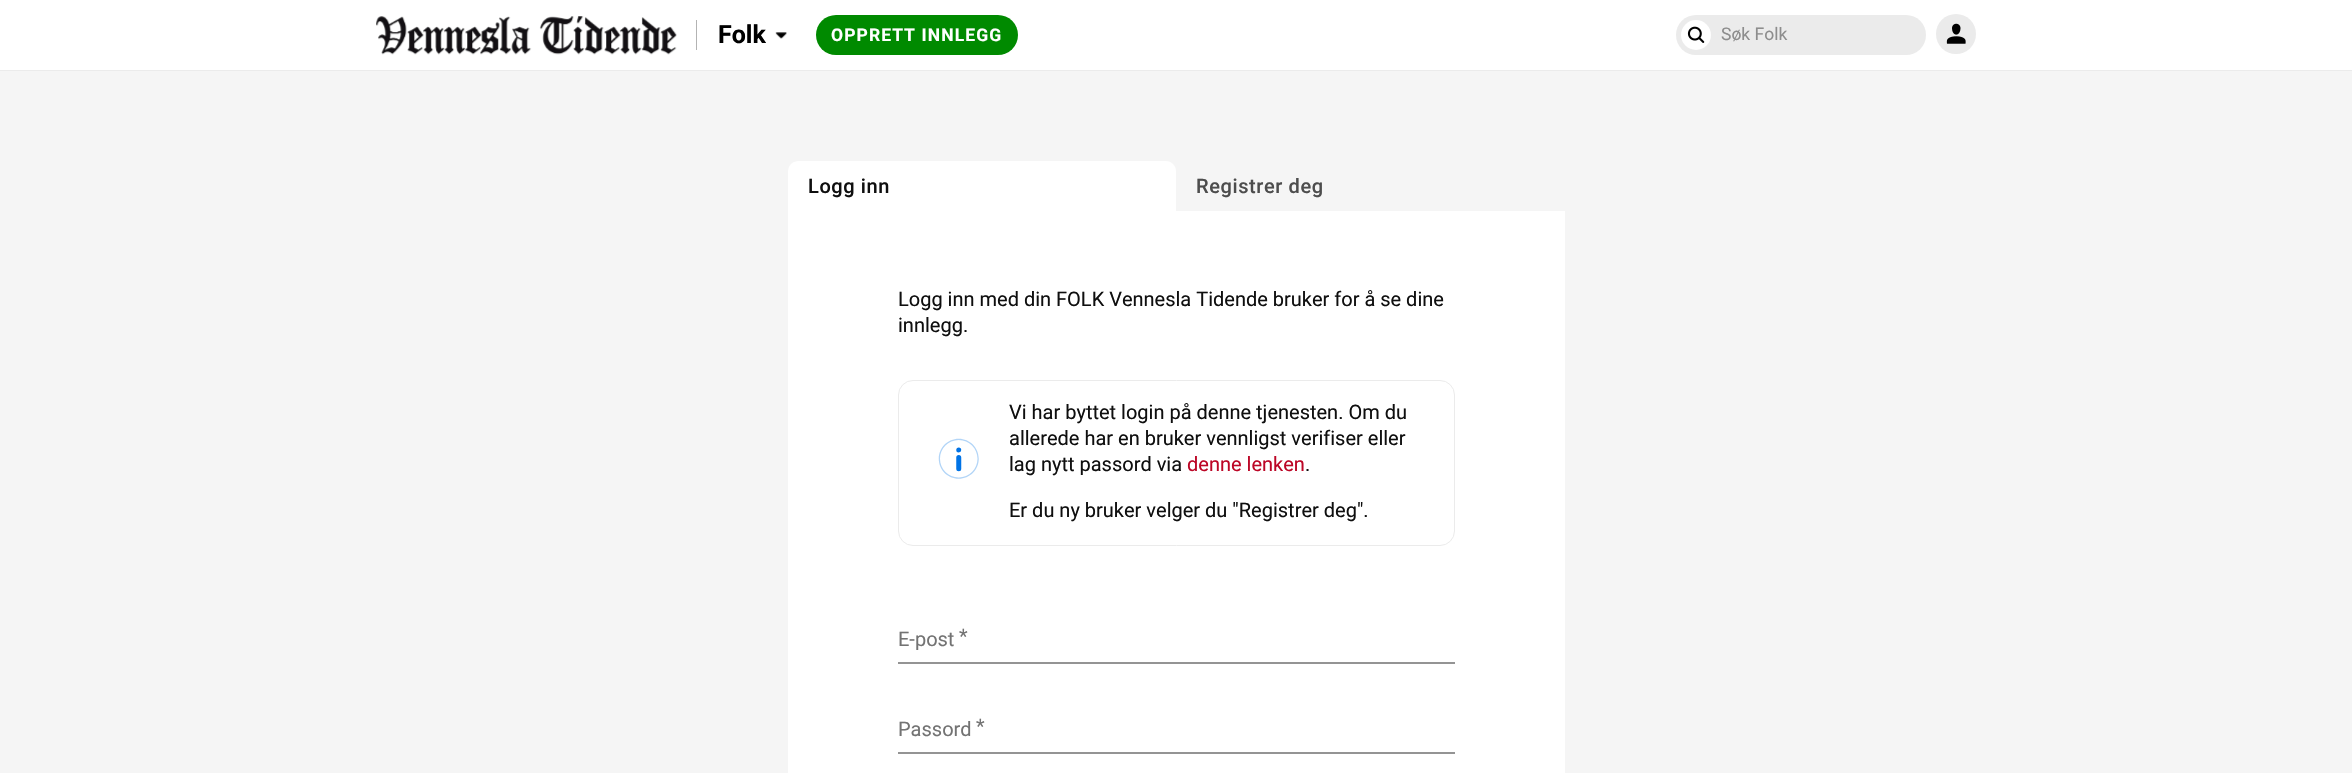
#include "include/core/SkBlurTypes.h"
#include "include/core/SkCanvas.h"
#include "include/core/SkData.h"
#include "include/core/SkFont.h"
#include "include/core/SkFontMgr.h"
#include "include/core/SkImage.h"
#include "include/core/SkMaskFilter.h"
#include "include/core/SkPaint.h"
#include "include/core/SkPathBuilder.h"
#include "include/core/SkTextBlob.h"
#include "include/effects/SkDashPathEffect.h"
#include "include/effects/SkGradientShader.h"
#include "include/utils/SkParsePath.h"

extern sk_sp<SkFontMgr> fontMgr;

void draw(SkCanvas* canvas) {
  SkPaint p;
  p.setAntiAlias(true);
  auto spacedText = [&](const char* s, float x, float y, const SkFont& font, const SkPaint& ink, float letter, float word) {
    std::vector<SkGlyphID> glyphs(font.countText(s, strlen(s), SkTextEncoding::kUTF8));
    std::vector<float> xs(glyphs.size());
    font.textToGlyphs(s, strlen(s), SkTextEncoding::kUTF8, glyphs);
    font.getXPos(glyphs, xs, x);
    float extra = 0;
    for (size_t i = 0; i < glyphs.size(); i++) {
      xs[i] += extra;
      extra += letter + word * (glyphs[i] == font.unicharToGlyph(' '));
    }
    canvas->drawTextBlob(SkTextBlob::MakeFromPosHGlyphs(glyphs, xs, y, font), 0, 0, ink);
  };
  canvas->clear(SkColorSetRGB(245, 245, 245));
  p.setColor(SK_ColorWHITE);
  canvas->drawRect(SkRect::MakeLTRB(0, 0, 2352, 70), p);
  p.setColor(SkColorSetRGB(235, 235, 235));
  canvas->drawRect(SkRect::MakeLTRB(0, 70, 2352, 71), p);
  canvas->drawImageRect(SkImages::DeferredFromEncodedData(SkData::MakeFromFileName("images/1.png")), SkRect::MakeLTRB(376, 16, 677, 55), SkSamplingOptions());
  p.setColor(SkColorSetRGB(179, 179, 179));
  canvas->drawRect(SkRect::MakeLTRB(696, 20, 697, 50), p);
  canvas->drawImageRect(SkImages::DeferredFromEncodedData(SkData::MakeFromFileName("images/2.png")), SkRect::MakeLTRB(775, 32, 787, 39), SkSamplingOptions());
  p.setColor(SkColorSetRGB(0, 138, 0));
  canvas->drawRoundRect(SkRect::MakeLTRB(816, 15, 1018, 55), 20, 20, p);
  p.setColor(SkColorSetRGB(235, 235, 235));
  canvas->drawRoundRect(SkRect::MakeLTRB(1676, 15, 1926, 55), 20, 20, p);
  p.setColor(SK_ColorWHITE);
  canvas->drawCircle(1696, 35, 15, p);
  canvas->drawImageRect(SkImages::DeferredFromEncodedData(SkData::MakeFromFileName("images/3.png")), SkRect::MakeLTRB(1687, 26, 1705, 43), SkSamplingOptions());
  p.setColor(SkColorSetRGB(235, 235, 235));
  canvas->drawCircle(1956, 34, 20, p);
  canvas->drawImageRect(SkImages::DeferredFromEncodedData(SkData::MakeFromFileName("images/4.png")), SkRect::MakeLTRB(1946, 23, 1966, 44), SkSamplingOptions());
  canvas->save();
  canvas->clipPath(SkPathBuilder().moveTo(797, 161).lineTo(1556, 161).cubicTo(1561, 161, 1565, 165, 1565, 170).lineTo(1565, 895).cubicTo(1565, 900, 1561, 904, 1556, 904).lineTo(797, 904).cubicTo(792, 904, 788, 900, 788, 895).lineTo(788, 170).cubicTo(788, 165, 792, 161, 797, 161).close().detach(), true);
  p.setColor(SK_ColorWHITE);
  canvas->drawPath(SkPathBuilder().moveTo(798, 161).lineTo(1166, 161).cubicTo(1171.5f, 161, 1176, 165.5f, 1176, 171).lineTo(1176, 211).lineTo(788, 211).lineTo(788, 171).cubicTo(788, 165.5f, 792.5f, 161, 798, 161).close().detach(), p);
  canvas->restore();
  canvas->drawRect(SkRect::MakeLTRB(788, 211, 1565, 773), p);
  p.setStyle(SkPaint::kStroke_Style);
  p.setStrokeWidth(1);
  p.setColor(SkColorSetRGB(235, 235, 235));
  canvas->drawRoundRect(SkRect::MakeLTRB(898.5f, 380.5f, 1454.5f, 545.5f), 14.5f, 14.5f, p);
  canvas->drawImageRect(SkImages::DeferredFromEncodedData(SkData::MakeFromFileName("images/5.png")), SkRect::MakeLTRB(938, 438, 979, 479), SkSamplingOptions());
  p.setStyle(SkPaint::kFill_Style);
  p.setColor(SkColorSetRGB(148, 148, 148));
  canvas->drawRect(SkRect::MakeLTRB(898, 662, 1455, 664), p);
  canvas->drawRect(SkRect::MakeLTRB(898, 752, 1455, 754), p);
  SkFont font1(fontMgr->matchFamilyStyle("Roboto", SkFontStyle::Bold()), 25);
  font1.setSubpixel(true);
  p.setColor(SK_ColorBLACK);
  canvas->drawString("Folk", 718, 43, font1, p);
  SkFont font2(fontMgr->matchFamilyStyle("Roboto", SkFontStyle::Bold()), 17.5f);
  font2.setSubpixel(true);
  p.setColor(SK_ColorWHITE);
  spacedText("OPPRETT INNLEGG", 831, 41, font2, p, 1.1f, 0);
  SkFont font3(fontMgr->matchFamilyStyle("Roboto", SkFontStyle::Normal()), 17.5f);
  font3.setSubpixel(true);
  p.setColor(SkColorSetRGB(141, 141, 141));
  canvas->drawString("Søk Folk", 1721, 40, font3, p);
  SkFont font4(fontMgr->matchFamilyStyle("Roboto", SkFontStyle(500, SkFontStyle::kNormal_Width, SkFontStyle::kUpright_Slant)), 20);
  font4.setSubpixel(true);
  p.setColor(SkColorSetRGB(15, 15, 15));
  spacedText("Logg inn", 808, 193, font4, p, 0.6f, 0);
  p.setColor(SkColorSetRGB(77, 77, 77));
  spacedText("Registrer deg", 1196, 193, font4, p, 0.6f, 0);
  SkFont font5(fontMgr->matchFamilyStyle("Roboto", SkFontStyle::Normal()), 20);
  font5.setSubpixel(true);
  p.setColor(SkColorSetRGB(15, 15, 15));
  canvas->drawString("Logg inn med din FOLK Vennesla Tidende bruker for å se dine", 898, 306, font5, p);
  canvas->drawString("innlegg.", 898, 332, font5, p);
  canvas->drawString("Vi har byttet login på denne tjenesten. Om du", 1009, 419, font5, p);
  canvas->drawString("allerede har en bruker vennligst verifiser eller", 1009, 445, font5, p);
  canvas->drawString("lag nytt passord via", 1009, 471, font5, p);
  p.setColor(SkColorSetRGB(188, 6, 38));
  canvas->drawString("denne lenken", 1187, 471, font5, p);
  p.setColor(SkColorSetRGB(15, 15, 15));
  canvas->drawString(".", 1305, 471, font5, p);
  canvas->drawString("Er du ny bruker velger du \"Registrer deg\".", 1009, 517, font5, p);
  p.setColor(SkColorSetRGB(115, 115, 115));
  canvas->drawString("E-post", 898, 646, font5, p);
  canvas->drawString("*", 959, 643, font5, p);
  canvas->drawString("Passord", 898, 736, font5, p);
  canvas->drawString("*", 976, 733, font5, p);
}
